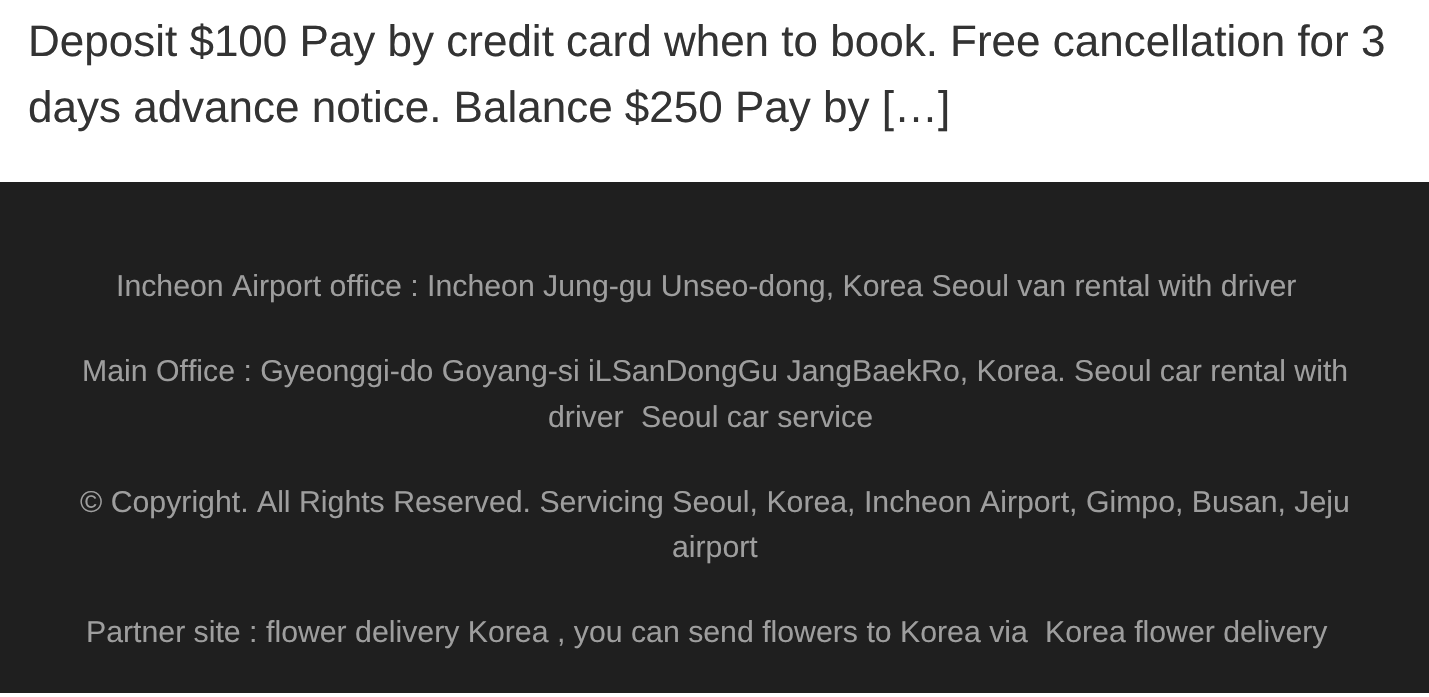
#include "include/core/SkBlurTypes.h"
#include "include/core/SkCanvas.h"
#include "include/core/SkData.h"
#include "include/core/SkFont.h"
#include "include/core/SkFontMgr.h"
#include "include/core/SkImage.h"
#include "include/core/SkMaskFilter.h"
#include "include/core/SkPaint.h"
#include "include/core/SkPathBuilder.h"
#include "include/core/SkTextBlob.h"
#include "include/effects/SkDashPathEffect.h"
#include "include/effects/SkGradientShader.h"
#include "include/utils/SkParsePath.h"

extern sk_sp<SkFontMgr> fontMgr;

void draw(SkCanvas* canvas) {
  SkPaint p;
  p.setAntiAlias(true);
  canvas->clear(SK_ColorWHITE);
  p.setColor(SkColorSetRGB(31, 31, 31));
  canvas->drawRect(SkRect::MakeLTRB(0, 182, 1429, 693), p);
  SkFont font1(fontMgr->matchFamilyStyle("Liberation Sans", SkFontStyle::Normal()), 44);
  font1.setSubpixel(true);
  p.setColor(SkColorSetRGB(51, 51, 51));
  canvas->drawString("Deposit $100 Pay by credit card when to book. Free cancellation for 3", 28, 56, font1, p);
  canvas->drawString("days advance notice. Balance $250 Pay by […]", 28, 122, font1, p);
  SkFont font2(fontMgr->matchFamilyStyle("Liberation Sans", SkFontStyle::Normal()), 30.25f);
  font2.setSubpixel(true);
  p.setColor(SkColorSetRGB(158, 158, 158));
  canvas->drawString("Incheon Airport office : Incheon Jung-gu Unseo-dong, Korea Seoul van rental with driver", 116, 296, font2, p);
  canvas->drawString("Main Office : Gyeonggi-do Goyang-si iLSanDongGu JangBaekRo, Korea. Seoul car rental with", 82, 381, font2, p);
  canvas->drawString("driver", 548, 427, font2, p);
  canvas->drawString("Seoul car service", 641, 427, font2, p);
  canvas->drawString("© Copyright. All Rights Reserved. Servicing Seoul, Korea, Incheon Airport, Gimpo, Busan, Jeju", 80, 512, font2, p);
  canvas->drawString("airport", 672, 557, font2, p);
  canvas->drawString("Partner site :", 86, 642, font2, p);
  canvas->drawString("flower delivery Korea", 266, 642, font2, p);
  canvas->drawString(", you can send flowers to Korea via", 557, 642, font2, p);
  canvas->drawString("Korea flower delivery", 1045, 642, font2, p);
}
